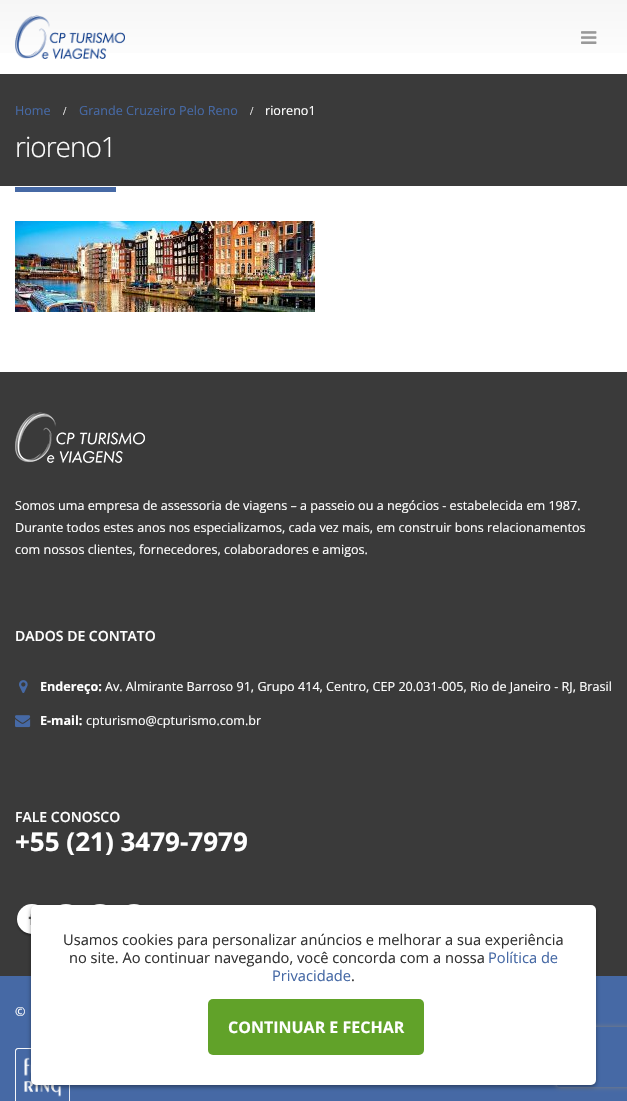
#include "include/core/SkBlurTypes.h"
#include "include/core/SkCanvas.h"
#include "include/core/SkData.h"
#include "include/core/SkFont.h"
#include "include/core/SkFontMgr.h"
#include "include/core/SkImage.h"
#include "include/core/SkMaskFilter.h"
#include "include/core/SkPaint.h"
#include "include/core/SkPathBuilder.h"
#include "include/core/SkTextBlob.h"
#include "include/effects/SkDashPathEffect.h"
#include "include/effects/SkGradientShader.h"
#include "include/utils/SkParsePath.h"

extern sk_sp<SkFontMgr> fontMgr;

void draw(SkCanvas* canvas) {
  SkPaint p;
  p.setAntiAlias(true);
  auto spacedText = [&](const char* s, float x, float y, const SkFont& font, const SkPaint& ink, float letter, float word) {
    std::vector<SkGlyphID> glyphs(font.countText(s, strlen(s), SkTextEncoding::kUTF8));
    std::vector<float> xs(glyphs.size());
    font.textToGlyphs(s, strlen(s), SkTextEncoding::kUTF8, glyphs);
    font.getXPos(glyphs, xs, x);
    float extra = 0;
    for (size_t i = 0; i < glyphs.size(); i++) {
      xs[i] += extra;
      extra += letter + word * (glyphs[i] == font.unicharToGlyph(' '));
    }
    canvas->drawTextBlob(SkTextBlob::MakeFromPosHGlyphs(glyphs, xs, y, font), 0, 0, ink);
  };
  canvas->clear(SK_ColorWHITE);
  {
    const SkColor colors[] = {SkColorSetRGB(246, 246, 246), SK_ColorWHITE};
    const float stops[] = {0, 1};
    const SkPoint ends[] = {{314, 0}, {314, 74}};
    p.setShader(SkGradientShader::MakeLinear(ends, colors, stops, 2, SkTileMode::kClamp));
    p.setAlpha(255);
  }
  canvas->drawRect(SkRect::MakeLTRB(0, 0, 627, 53), p);
  canvas->drawImageRect(SkImages::DeferredFromEncodedData(SkData::MakeFromFileName("images/1.png")), SkRect::MakeLTRB(15, 15, 125, 59), SkSamplingOptions());
  canvas->drawImageRect(SkImages::DeferredFromEncodedData(SkData::MakeFromFileName("images/2.png")), SkRect::MakeLTRB(581, 31, 597, 44), SkSamplingOptions());
  p.setShader(nullptr);
  p.setColor(SkColorSetRGB(58, 58, 58));
  canvas->drawRect(SkRect::MakeLTRB(0, 74, 627, 186), p);
  p.setColor(SkColorSetRGB(70, 105, 165));
  canvas->drawRect(SkRect::MakeLTRB(15, 187, 116, 192), p);
  canvas->drawImageRect(SkImages::DeferredFromEncodedData(SkData::MakeFromFileName("images/3.png")), SkRect::MakeLTRB(15, 221, 315, 312), SkSamplingOptions());
  p.setColor(SkColorSetRGB(58, 58, 58));
  canvas->drawRect(SkRect::MakeLTRB(0, 372, 627, 976), p);
  canvas->drawImageRect(SkImages::DeferredFromEncodedData(SkData::MakeFromFileName("images/4.png")), SkRect::MakeLTRB(15, 412, 145, 463), SkSamplingOptions());
  canvas->drawImageRect(SkImages::DeferredFromEncodedData(SkData::MakeFromFileName("images/5.png")), SkRect::MakeLTRB(19, 680, 28, 693), SkSamplingOptions());
  canvas->drawImageRect(SkImages::DeferredFromEncodedData(SkData::MakeFromFileName("images/6.png")), SkRect::MakeLTRB(15, 715, 31, 728), SkSamplingOptions());
  p.setColor(SkColorSetARGB(77, 0, 0, 0));
  p.setMaskFilter(SkMaskFilter::MakeBlur(kNormal_SkBlurStyle, 1));
  canvas->drawRoundRect(SkRect::MakeLTRB(17, 906, 47, 936), 15, 15, p);
  p.setMaskFilter(nullptr);
  p.setColor(SK_ColorWHITE);
  canvas->drawCircle(32, 919, 15, p);
  canvas->drawImageRect(SkImages::DeferredFromEncodedData(SkData::MakeFromFileName("images/7.png")), SkRect::MakeLTRB(28, 913, 31, 925), SkSamplingOptions());
  canvas->drawCircle(66, 919, 15, p);
  canvas->drawCircle(100, 919, 15, p);
  canvas->drawCircle(134, 919, 15, p);
  p.setColor(SkColorSetRGB(70, 105, 165));
  canvas->drawRect(SkRect::MakeLTRB(0, 976, 627, 1101), p);
  canvas->drawImageRect(SkImages::DeferredFromEncodedData(SkData::MakeFromFileName("images/8.png")), SkRect::MakeLTRB(15, 1048, 70, 1101), SkSamplingOptions());
  p.setColor(SkColorSetARGB(102, 0, 0, 0));
  p.setMaskFilter(SkMaskFilter::MakeBlur(kNormal_SkBlurStyle, 2));
  canvas->drawRoundRect(SkRect::MakeLTRB(31, 907, 596, 1087), 5, 5, p);
  p.setMaskFilter(nullptr);
  canvas->save();
  canvas->clipPath(SkPathBuilder(SkPathFillType::kEvenOdd).moveTo(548, 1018).lineTo(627, 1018).lineTo(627, 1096).lineTo(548, 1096).close().moveTo(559, 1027).lineTo(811, 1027).cubicTo(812, 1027, 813, 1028, 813, 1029).lineTo(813, 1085).cubicTo(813, 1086, 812, 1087, 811, 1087).lineTo(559, 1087).cubicTo(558, 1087, 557, 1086, 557, 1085).lineTo(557, 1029).cubicTo(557, 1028, 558, 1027, 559, 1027).close().detach(), true);
  p.setColor(SkColorSetRGB(128, 128, 128));
  p.setMaskFilter(SkMaskFilter::MakeBlur(kNormal_SkBlurStyle, 2.5f));
  canvas->drawRoundRect(SkRect::MakeLTRB(557, 1027, 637, 1087), 2, 2, p);
  p.setMaskFilter(nullptr);
  canvas->restore();
  p.setColor(SK_ColorWHITE);
  canvas->drawRoundRect(SkRect::MakeLTRB(31, 905, 596, 1085), 5, 5, p);
  p.setColor(SkColorSetRGB(97, 162, 41));
  canvas->drawRoundRect(SkRect::MakeLTRB(208, 999, 424, 1055), 5, 5, p);
  SkFont font1(fontMgr->matchFamilyStyle("Open Sans", SkFontStyle::Normal()), 12.6f);
  font1.setSubpixel(true);
  p.setColor(SkColorSetRGB(70, 105, 165));
  canvas->drawString("Home", 15, 115, font1, p);
  SkFont font2(fontMgr->matchFamilyStyle("Liberation Serif", SkFontStyle::Normal()), 12);
  font2.setSubpixel(true);
  p.setColor(SK_ColorWHITE);
  canvas->drawString("/", 63, 115, font2, p);
  p.setColor(SkColorSetRGB(70, 105, 165));
  canvas->drawString("Grande Cruzeiro Pelo Reno", 79, 115, font1, p);
  p.setColor(SK_ColorWHITE);
  canvas->drawString("/", 250, 115, font2, p);
  canvas->drawString("rioreno1", 265, 115, font1, p);
  SkFont font3(fontMgr->matchFamilyStyle("Open Sans", SkFontStyle(300, SkFontStyle::kNormal_Width, SkFontStyle::kUpright_Slant)), 28);
  font3.setSubpixel(true);
  spacedText("rioreno1", 15, 157, font3, p, -1, 0);
  canvas->drawString("Somos uma empresa de assessoria de viagens – a passeio ou a negócios - estabelecida em 1987.", 15, 510, font1, p);
  canvas->drawString("Durante todos estes anos nos especializamos, cada vez mais, em construir bons relacionamentos", 15, 532, font1, p);
  canvas->drawString("com nossos clientes, fornecedores, colaboradores e amigos.", 15, 554, font1, p);
  SkFont font4(fontMgr->matchFamilyStyle("Open Sans", SkFontStyle(600, SkFontStyle::kNormal_Width, SkFontStyle::kUpright_Slant)), 14);
  font4.setSubpixel(true);
  canvas->drawString("DADOS DE CONTATO", 15, 641, font4, p);
  SkFont font5(fontMgr->matchFamilyStyle("Open Sans", SkFontStyle::Bold()), 12.6f);
  font5.setSubpixel(true);
  canvas->drawString("Endereço:", 40, 691, font5, p);
  canvas->drawString("Av. Almirante Barroso 91, Grupo 414, Centro, CEP 20.031-005, Rio de Janeiro - RJ, Brasil", 105, 691, font1, p);
  canvas->drawString("E-mail:", 40, 725, font5, p);
  canvas->drawString("cpturismo@cpturismo.com.br", 86, 725, font1, p);
  canvas->drawString("FALE CONOSCO", 15, 822, font4, p);
  SkFont font6(fontMgr->matchFamilyStyle("Open Sans", SkFontStyle::Bold()), 26);
  font6.setSubpixel(true);
  canvas->drawString("+55 (21) 3479-7979", 15, 851, font6, p);
  canvas->drawString("©", 15, 1016, font1, p);
  SkFont font7(fontMgr->matchFamilyStyle("Open Sans", SkFontStyle::Normal()), 14.65f);
  font7.setSubpixel(true);
  p.setColor(SkColorSetRGB(51, 51, 51));
  canvas->drawString("Usamos cookies para personalizar anúncios e melhorar a sua experiência", 63, 945, font7, p);
  canvas->drawString("no site. Ao continuar navegando, você concorda com a nossa", 69, 963, font7, p);
  p.setColor(SkColorSetRGB(70, 105, 165));
  canvas->drawString("Política de", 488, 963, font7, p);
  canvas->drawString("Privacidade", 272, 981, font7, p);
  p.setColor(SkColorSetRGB(51, 51, 51));
  canvas->drawString(".", 351, 981, font7, p);
  SkFont font8(fontMgr->matchFamilyStyle("Open Sans", SkFontStyle::Bold()), 16);
  font8.setSubpixel(true);
  p.setColor(SK_ColorWHITE);
  canvas->drawString("CONTINUAR E FECHAR", 228, 1033, font8, p);
}
